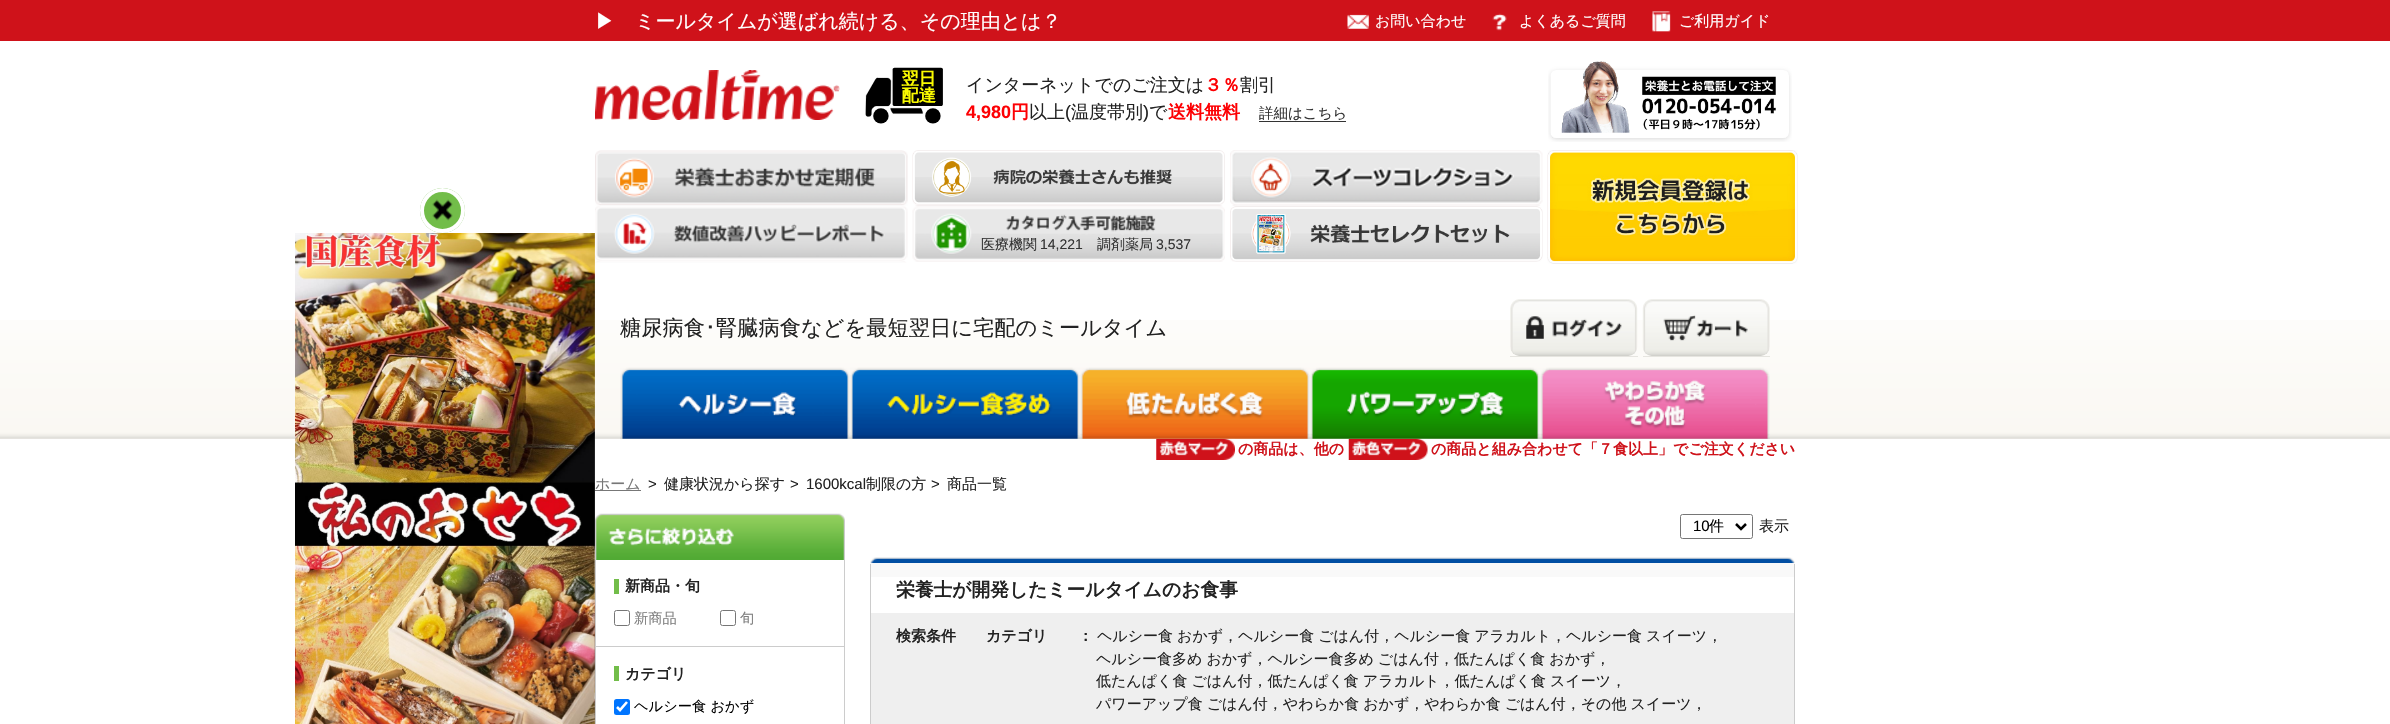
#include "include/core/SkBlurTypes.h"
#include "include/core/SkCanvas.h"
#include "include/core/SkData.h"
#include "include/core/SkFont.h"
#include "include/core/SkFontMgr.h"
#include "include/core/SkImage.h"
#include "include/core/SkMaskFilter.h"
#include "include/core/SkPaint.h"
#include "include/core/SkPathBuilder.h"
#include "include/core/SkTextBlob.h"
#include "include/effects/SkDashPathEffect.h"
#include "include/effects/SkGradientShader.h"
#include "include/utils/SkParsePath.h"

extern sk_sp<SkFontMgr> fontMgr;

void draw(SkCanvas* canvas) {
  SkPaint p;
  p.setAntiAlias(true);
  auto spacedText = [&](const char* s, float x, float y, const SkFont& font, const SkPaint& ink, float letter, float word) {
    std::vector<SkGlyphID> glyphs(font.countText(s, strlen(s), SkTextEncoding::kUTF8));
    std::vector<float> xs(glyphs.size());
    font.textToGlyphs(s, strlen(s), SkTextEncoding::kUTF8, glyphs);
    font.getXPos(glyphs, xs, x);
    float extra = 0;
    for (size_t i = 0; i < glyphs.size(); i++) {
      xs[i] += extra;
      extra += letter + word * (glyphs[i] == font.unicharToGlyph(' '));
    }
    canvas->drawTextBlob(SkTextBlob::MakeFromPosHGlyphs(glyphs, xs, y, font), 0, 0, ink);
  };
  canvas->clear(SK_ColorWHITE);
  canvas->drawImageRect(SkImages::DeferredFromEncodedData(SkData::MakeFromFileName("images/1.png")), SkRect::MakeLTRB(0, 320, 2390, 439), SkSamplingOptions());
  p.setColor(SkColorSetRGB(207, 18, 26));
  canvas->drawRect(SkRect::MakeLTRB(0, 0, 2390, 41), p);
  canvas->drawImageRect(SkImages::DeferredFromEncodedData(SkData::MakeFromFileName("images/2.png")), SkRect::MakeLTRB(1347, 14, 1369, 29), SkSamplingOptions());
  canvas->drawImageRect(SkImages::DeferredFromEncodedData(SkData::MakeFromFileName("images/3.png")), SkRect::MakeLTRB(1492, 13, 1507, 31), SkSamplingOptions());
  canvas->drawImageRect(SkImages::DeferredFromEncodedData(SkData::MakeFromFileName("images/4.png")), SkRect::MakeLTRB(1652, 11, 1671, 32), SkSamplingOptions());
  canvas->drawImageRect(SkImages::DeferredFromEncodedData(SkData::MakeFromFileName("images/5.png")), SkRect::MakeLTRB(595, 70, 840, 120), SkSamplingOptions());
  canvas->drawImageRect(SkImages::DeferredFromEncodedData(SkData::MakeFromFileName("images/6.png")), SkRect::MakeLTRB(865, 67, 943, 124), SkSamplingOptions());
  p.setColor(SkColorSetRGB(51, 51, 51));
  canvas->drawRect(SkRect::MakeLTRB(1259, 121, 1346, 122), p);
  canvas->drawImageRect(SkImages::DeferredFromEncodedData(SkData::MakeFromFileName("images/7.png")), SkRect::MakeLTRB(1548, 61, 1792, 142), SkSamplingOptions());
  canvas->drawImageRect(SkImages::DeferredFromEncodedData(SkData::MakeFromFileName("images/8.png")), SkRect::MakeLTRB(595, 150, 908, 206), SkSamplingOptions());
  canvas->drawImageRect(SkImages::DeferredFromEncodedData(SkData::MakeFromFileName("images/9.png")), SkRect::MakeLTRB(912, 150, 1225, 206), SkSamplingOptions());
  canvas->drawImageRect(SkImages::DeferredFromEncodedData(SkData::MakeFromFileName("images/10.png")), SkRect::MakeLTRB(1230, 150, 1543, 206), SkSamplingOptions());
  canvas->drawImageRect(SkImages::DeferredFromEncodedData(SkData::MakeFromFileName("images/11.png")), SkRect::MakeLTRB(595, 206, 908, 263), SkSamplingOptions());
  canvas->drawImageRect(SkImages::DeferredFromEncodedData(SkData::MakeFromFileName("images/12.png")), SkRect::MakeLTRB(912, 206, 1225, 262), SkSamplingOptions());
  canvas->drawImageRect(SkImages::DeferredFromEncodedData(SkData::MakeFromFileName("images/13.png")), SkRect::MakeLTRB(1230, 206, 1543, 262), SkSamplingOptions());
  canvas->drawImageRect(SkImages::DeferredFromEncodedData(SkData::MakeFromFileName("images/14.png")), SkRect::MakeLTRB(1547, 150, 1798, 264), SkSamplingOptions());
  p.setColor(SkColorSetRGB(230, 229, 224));
  canvas->drawRect(SkRect::MakeLTRB(1510, 356, 1638, 357), p);
  canvas->drawImageRect(SkImages::DeferredFromEncodedData(SkData::MakeFromFileName("images/15.png")), SkRect::MakeLTRB(1510, 299, 1638, 356), SkSamplingOptions());
  canvas->drawRect(SkRect::MakeLTRB(1643, 356, 1770, 357), p);
  canvas->drawImageRect(SkImages::DeferredFromEncodedData(SkData::MakeFromFileName("images/16.png")), SkRect::MakeLTRB(1642, 299, 1770, 356), SkSamplingOptions());
  canvas->drawImageRect(SkImages::DeferredFromEncodedData(SkData::MakeFromFileName("images/17.png")), SkRect::MakeLTRB(620, 367, 850, 439), SkSamplingOptions());
  canvas->drawImageRect(SkImages::DeferredFromEncodedData(SkData::MakeFromFileName("images/18.png")), SkRect::MakeLTRB(850, 367, 1080, 439), SkSamplingOptions());
  canvas->drawImageRect(SkImages::DeferredFromEncodedData(SkData::MakeFromFileName("images/24.png")), SkRect::MakeLTRB(1156, 438, 1235, 460), SkSamplingOptions());
  canvas->drawImageRect(SkImages::DeferredFromEncodedData(SkData::MakeFromFileName("images/19.png")), SkRect::MakeLTRB(1080, 367, 1310, 439), SkSamplingOptions());
  canvas->drawImageRect(SkImages::DeferredFromEncodedData(SkData::MakeFromFileName("images/25.png")), SkRect::MakeLTRB(1348, 438, 1428, 460), SkSamplingOptions());
  canvas->drawImageRect(SkImages::DeferredFromEncodedData(SkData::MakeFromFileName("images/20.png")), SkRect::MakeLTRB(1310, 367, 1540, 439), SkSamplingOptions());
  canvas->drawImageRect(SkImages::DeferredFromEncodedData(SkData::MakeFromFileName("images/21.png")), SkRect::MakeLTRB(1540, 367, 1770, 439), SkSamplingOptions());
  p.setColor(SkColorSetRGB(114, 189, 73));
  canvas->drawCircle(442.5f, 210.5f, 22.5f, p);
  canvas->drawImageRect(SkImages::DeferredFromEncodedData(SkData::MakeFromFileName("images/22.png")), SkRect::MakeLTRB(432, 199, 453, 221), SkSamplingOptions());
  p.setStyle(SkPaint::kStroke_Style);
  p.setStrokeWidth(4);
  p.setColor(SK_ColorWHITE);
  canvas->drawCircle(442.5f, 210.5f, 20.5f, p);
  canvas->drawImageRect(SkImages::DeferredFromEncodedData(SkData::MakeFromFileName("images/23.png")), SkRect::MakeLTRB(295, 233, 595, 724), SkSamplingOptions());
  p.setStyle(SkPaint::kFill_Style);
  p.setColor(SkColorSetRGB(119, 119, 119));
  canvas->drawRect(SkRect::MakeLTRB(595, 490, 641, 491), p);
  canvas->drawImageRect(SkImages::DeferredFromEncodedData(SkData::MakeFromFileName("images/26.png")), SkRect::MakeLTRB(595, 513, 845, 560), SkSamplingOptions());
  p.setColor(SkColorSetRGB(204, 204, 204));
  canvas->drawRect(SkRect::MakeLTRB(844, 560, 845, 724), p);
  canvas->drawRect(SkRect::MakeLTRB(595, 646, 845, 647), p);
  canvas->drawRect(SkRect::MakeLTRB(595, 560, 596, 724), p);
  p.setColor(SkColorSetRGB(114, 189, 73));
  canvas->drawRect(SkRect::MakeLTRB(614, 579, 619, 594), p);
  p.setStyle(SkPaint::kStroke_Style);
  p.setStrokeWidth(1);
  p.setColor(SkColorSetRGB(118, 118, 118));
  canvas->drawRoundRect(SkRect::MakeLTRB(614.5f, 610.5f, 629.5f, 625.5f), 2, 2, p);
  canvas->drawRoundRect(SkRect::MakeLTRB(720.5f, 610.5f, 735.5f, 625.5f), 2, 2, p);
  p.setStyle(SkPaint::kFill_Style);
  p.setColor(SkColorSetRGB(114, 189, 73));
  canvas->drawRect(SkRect::MakeLTRB(614, 666, 619, 681), p);
  p.setColor(SkColorSetRGB(0, 117, 255));
  canvas->drawRoundRect(SkRect::MakeLTRB(614, 699, 630, 715), 2.5f, 2.5f, p);
  p.setStyle(SkPaint::kStroke_Style);
  p.setStrokeWidth(2.6f);
  p.setColor(SK_ColorWHITE);
  canvas->drawPath(SkPathBuilder().moveTo(617, 707).lineTo(620, 710).lineTo(627, 702).detach(), p);
  p.setStrokeWidth(1);
  p.setColor(SkColorSetRGB(118, 118, 118));
  canvas->drawRoundRect(SkRect::MakeLTRB(1680.5f, 514.5f, 1752.5f, 538.5f), 2, 2, p);
  p.setStrokeWidth(2.5f);
  p.setColor(SK_ColorBLACK);
  canvas->drawPath(SkPathBuilder().moveTo(1736, 524).lineTo(1741, 529).lineTo(1746, 524).detach(), p);
  canvas->drawImageRect(SkImages::DeferredFromEncodedData(SkData::MakeFromFileName("images/27.png")), SkRect::MakeLTRB(870, 557, 1795, 563), SkSamplingOptions());
  p.setStyle(SkPaint::kFill_Style);
  p.setColor(SkColorSetRGB(249, 249, 249));
  canvas->drawRect(SkRect::MakeLTRB(870, 563, 1795, 577), p);
  p.setColor(SkColorSetRGB(204, 204, 204));
  canvas->drawRect(SkRect::MakeLTRB(1794, 564, 1795, 724), p);
  canvas->drawRect(SkRect::MakeLTRB(870, 564, 871, 724), p);
  p.setColor(SkColorSetRGB(239, 239, 239));
  canvas->drawRect(SkRect::MakeLTRB(871, 613, 1794, 724), p);
  SkFont font1(fontMgr->matchFamilyStyle("WenQuanYi Zen Hei", SkFontStyle(500, SkFontStyle::kNormal_Width, SkFontStyle::kUpright_Slant)), 20);
  font1.setSubpixel(true);
  p.setColor(SK_ColorWHITE);
  canvas->drawString("▶", 595, 28, font1, p);
  canvas->drawString("ミールタイムが選ばれ続ける、その理由とは？", 635, 28, font1, p);
  SkFont font2(fontMgr->matchFamilyStyle("WenQuanYi Zen Hei", SkFontStyle(500, SkFontStyle::kNormal_Width, SkFontStyle::kUpright_Slant)), 15);
  font2.setSubpixel(true);
  canvas->drawString("お問い合わせ", 1375, 26, font2, p);
  canvas->drawString("よくあるご質問", 1519, 26, font2, p);
  canvas->drawString("ご利用ガイド", 1679, 26, font2, p);
  SkFont font3(fontMgr->matchFamilyStyle("WenQuanYi Zen Hei", SkFontStyle(500, SkFontStyle::kNormal_Width, SkFontStyle::kUpright_Slant)), 18);
  font3.setSubpixel(true);
  p.setColor(SkColorSetRGB(34, 34, 34));
  canvas->drawString("インターネットでのご注文は", 966, 91, font3, p);
  SkFont font4(fontMgr->matchFamilyStyle("WenQuanYi Zen Hei", SkFontStyle::Bold()), 18);
  font4.setSubpixel(true);
  p.setColor(SkColorSetRGB(253, 0, 3));
  canvas->drawString("３％", 1204, 91, font4, p);
  p.setColor(SkColorSetRGB(34, 34, 34));
  canvas->drawString("割引", 1240, 91, font3, p);
  SkFont font5(fontMgr->matchFamilyStyle("Liberation Sans", SkFontStyle::Bold()), 18);
  font5.setSubpixel(true);
  p.setColor(SkColorSetRGB(253, 0, 3));
  canvas->drawString("4,980", 966, 118, font5, p);
  canvas->drawString("円", 1011, 118, font4, p);
  p.setColor(SkColorSetRGB(34, 34, 34));
  canvas->drawString("以上", 1029, 118, font3, p);
  SkFont font6(fontMgr->matchFamilyStyle("Liberation Sans", SkFontStyle::Normal()), 18);
  font6.setSubpixel(true);
  canvas->drawString("(", 1065, 118, font6, p);
  canvas->drawString("温度帯別", 1071, 118, font3, p);
  canvas->drawString(")", 1143, 118, font6, p);
  canvas->drawString("で", 1149, 118, font3, p);
  p.setColor(SkColorSetRGB(253, 0, 3));
  canvas->drawString("送料無料", 1168, 118, font4, p);
  SkFont font7(fontMgr->matchFamilyStyle("WenQuanYi Zen Hei", SkFontStyle(500, SkFontStyle::kNormal_Width, SkFontStyle::kUpright_Slant)), 14.5f);
  font7.setSubpixel(true);
  p.setColor(SkColorSetRGB(51, 51, 51));
  canvas->drawString("詳細はこちら", 1259, 118, font7, p);
  SkFont font8(fontMgr->matchFamilyStyle("WenQuanYi Zen Hei", SkFontStyle(500, SkFontStyle::kNormal_Width, SkFontStyle::kUpright_Slant)), 14);
  font8.setSubpixel(true);
  canvas->drawString("医療機関", 981, 249, font8, p);
  SkFont font9(fontMgr->matchFamilyStyle("Liberation Sans", SkFontStyle::Normal()), 14);
  font9.setSubpixel(true);
  canvas->drawString("14,221", 1040, 249, font9, p);
  canvas->drawString("調剤薬局", 1097, 249, font8, p);
  canvas->drawString("3,537", 1156, 249, font9, p);
  SkFont font10(fontMgr->matchFamilyStyle("WenQuanYi Zen Hei", SkFontStyle(500, SkFontStyle::kNormal_Width, SkFontStyle::kUpright_Slant)), 21.25f);
  font10.setSubpixel(true);
  p.setColor(SkColorSetRGB(34, 34, 34));
  canvas->drawString("糖尿病食", 620, 335, font10, p);
  SkFont font11(fontMgr->matchFamilyStyle("IPAGothic", SkFontStyle::Normal()), 21.25f);
  font11.setSubpixel(true);
  canvas->drawString("･", 705, 335, font11, p);
  canvas->drawString("腎臓病食などを最短翌日に宅配のミールタイム", 716, 335, font10, p);
  SkFont font12(fontMgr->matchFamilyStyle("WenQuanYi Zen Hei", SkFontStyle::Bold()), 15);
  font12.setSubpixel(true);
  p.setColor(SkColorSetRGB(207, 18, 26));
  canvas->drawString("の商品は、他の", 1238, 454, font12, p);
  canvas->drawString("の商品と組み合わせて「７食以上」でご注文ください", 1431, 454, font12, p);
  p.setColor(SkColorSetRGB(119, 119, 119));
  canvas->drawString("ホーム", 595, 489, font2, p);
  SkFont font13(fontMgr->matchFamilyStyle("Liberation Sans", SkFontStyle::Normal()), 15);
  font13.setSubpixel(true);
  p.setColor(SkColorSetRGB(34, 34, 34));
  canvas->drawString(">", 648, 489, font13, p);
  canvas->drawString("健康状況から探す", 664, 489, font2, p);
  canvas->drawString(">", 790, 489, font13, p);
  canvas->drawString("1600kcal", 806, 489, font13, p);
  canvas->drawString("制限の方", 866, 489, font2, p);
  canvas->drawString(">", 931, 489, font13, p);
  canvas->drawString("商品一覧", 947, 489, font2, p);
  canvas->drawString("新商品・旬", 625, 591, font12, p);
  SkFont font14(fontMgr->matchFamilyStyle("WenQuanYi Zen Hei", SkFontStyle(500, SkFontStyle::kNormal_Width, SkFontStyle::kUpright_Slant)), 14.25f);
  font14.setSubpixel(true);
  p.setColor(SkColorSetRGB(128, 128, 128));
  canvas->drawString("新商品", 634, 623, font14, p);
  canvas->drawString("旬", 740, 623, font14, p);
  p.setColor(SkColorSetRGB(34, 34, 34));
  canvas->drawString("カテゴリ", 625, 679, font12, p);
  p.setColor(SK_ColorBLACK);
  canvas->drawString("ヘルシー食 おかず", 634, 711, font14, p);
  canvas->drawString("10", 1693, 531, font13, p);
  canvas->drawString("件", 1709, 531, font2, p);
  p.setColor(SkColorSetRGB(34, 34, 34));
  canvas->drawString("表示", 1759, 531, font2, p);
  SkFont font15(fontMgr->matchFamilyStyle("WenQuanYi Zen Hei", SkFontStyle::Bold()), 18.75f);
  font15.setSubpixel(true);
  canvas->drawString("栄養士が開発したミールタイムのお食事", 896, 596, font15, p);
  canvas->drawString("検索条件", 896, 641, font12, p);
  canvas->drawString("カテゴリ", 986, 641, font12, p);
  canvas->drawString("：", 1078, 641, font12, p);
  spacedText("ヘルシー食 おかず，ヘルシー食 ごはん付，ヘルシー食 アラカルト，ヘルシー食 スイーツ，", 1097, 641, font2, p, 0, -0.5f);
  spacedText("ヘルシー食多め おかず，ヘルシー食多め ごはん付，低たんぱく食 おかず，", 1096, 664, font2, p, 0, -0.5f);
  spacedText("低たんぱく食 ごはん付，低たんぱく食 アラカルト，低たんぱく食 スイーツ，", 1096, 686, font2, p, 0, -0.5f);
  spacedText("パワーアップ食 ごはん付，やわらか食 おかず，やわらか食 ごはん付，その他 スイーツ，", 1096, 709, font2, p, 0, -0.5f);
}
